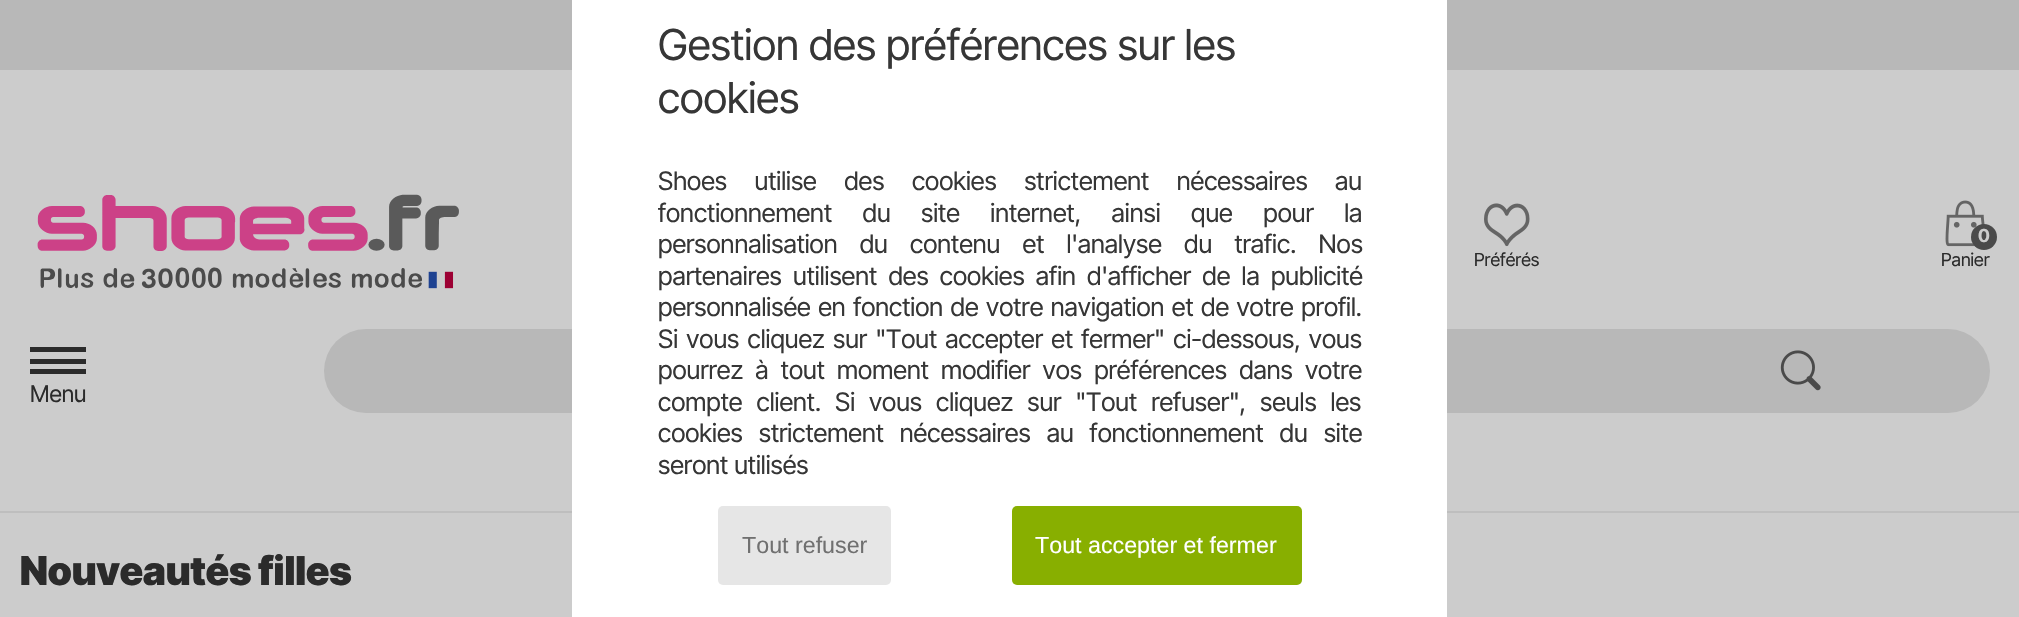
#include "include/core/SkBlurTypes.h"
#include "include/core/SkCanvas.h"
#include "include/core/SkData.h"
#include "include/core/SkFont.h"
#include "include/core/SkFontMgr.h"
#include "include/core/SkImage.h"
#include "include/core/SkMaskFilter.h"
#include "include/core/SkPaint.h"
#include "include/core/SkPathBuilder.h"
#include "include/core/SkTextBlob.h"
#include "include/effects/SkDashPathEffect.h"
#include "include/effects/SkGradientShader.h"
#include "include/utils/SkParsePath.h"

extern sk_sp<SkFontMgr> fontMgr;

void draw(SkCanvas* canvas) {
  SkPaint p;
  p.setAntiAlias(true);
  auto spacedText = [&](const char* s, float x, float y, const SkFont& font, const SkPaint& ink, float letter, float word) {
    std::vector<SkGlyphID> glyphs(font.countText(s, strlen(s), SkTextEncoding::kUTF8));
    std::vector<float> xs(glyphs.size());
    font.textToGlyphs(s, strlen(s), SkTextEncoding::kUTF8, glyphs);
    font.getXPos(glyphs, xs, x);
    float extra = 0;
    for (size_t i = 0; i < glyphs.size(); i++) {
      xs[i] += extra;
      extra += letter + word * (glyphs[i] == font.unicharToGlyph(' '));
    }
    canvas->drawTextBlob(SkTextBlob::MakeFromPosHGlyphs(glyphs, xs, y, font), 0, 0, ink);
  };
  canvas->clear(SkColorSetRGB(204, 204, 204));
  p.setColor(SkColorSetRGB(184, 184, 184));
  canvas->drawRect(SkRect::MakeLTRB(0, 0, 2019, 70), p);
  p.setColor(SkColorSetRGB(190, 190, 190));
  canvas->drawRect(SkRect::MakeLTRB(0, 511, 2019, 513), p);
  p.setColor(SkColorSetRGB(184, 184, 184));
  canvas->drawRoundRect(SkRect::MakeLTRB(324, 329, 1990, 413), 42, 42, p);
  p.setColor(SK_ColorWHITE);
  canvas->drawRect(SkRect::MakeLTRB(572, 0, 1447, 617), p);
  p.setColor(SkColorSetRGB(230, 230, 230));
  canvas->drawRoundRect(SkRect::MakeLTRB(718, 506, 891, 585), 5, 5, p);
  p.setColor(SkColorSetRGB(136, 175, 0));
  canvas->drawRoundRect(SkRect::MakeLTRB(1012, 506, 1302, 585), 5, 5, p);
  canvas->drawImageRect(SkImages::DeferredFromEncodedData(SkData::MakeFromFileName("images/1.png")), SkRect::MakeLTRB(37, 194, 459, 289), SkSamplingOptions());
  canvas->drawImageRect(SkImages::DeferredFromEncodedData(SkData::MakeFromFileName("images/2.png")), SkRect::MakeLTRB(1484, 203, 1530, 247), SkSamplingOptions());
  canvas->drawImageRect(SkImages::DeferredFromEncodedData(SkData::MakeFromFileName("images/3.png")), SkRect::MakeLTRB(1945, 200, 1985, 247), SkSamplingOptions());
  p.setColor(SkColorSetRGB(74, 74, 74));
  canvas->drawCircle(1984, 237, 13, p);
  p.setColor(SkColorSetRGB(43, 43, 43));
  canvas->drawRect(SkRect::MakeLTRB(30, 347, 86, 352), p);
  canvas->drawRect(SkRect::MakeLTRB(30, 359, 86, 364), p);
  canvas->drawRect(SkRect::MakeLTRB(30, 369, 86, 374), p);
  canvas->drawImageRect(SkImages::DeferredFromEncodedData(SkData::MakeFromFileName("images/4.png")), SkRect::MakeLTRB(1780, 350, 1821, 391), SkSamplingOptions());
  SkFont font1(fontMgr->matchFamilyStyle("Inter Tight", SkFontStyle::Normal()), 42.7f);
  font1.setSubpixel(true);
  p.setColor(SkColorSetRGB(54, 54, 54));
  canvas->drawString("Gestion des préférences sur les", 658, 60, font1, p);
  canvas->drawString("cookies", 658, 113, font1, p);
  SkFont font2(fontMgr->matchFamilyStyle("Inter Tight", SkFontStyle::Normal()), 25.6f);
  font2.setSubpixel(true);
  spacedText("Shoes utilise des cookies strictement nécessaires au", 658, 190, font2, p, 0, 21.5f);
  spacedText("fonctionnement du site internet, ainsi que pour la", 658, 222, font2, p, 0, 24.5f);
  spacedText("personnalisation du contenu et l'analyse du trafic. Nos", 658, 253, font2, p, 0, 16.25f);
  spacedText("partenaires utilisent des cookies afin d'afficher de la publicité", 658, 285, font2, p, 0, 5.25f);
  spacedText("personnalisée en fonction de votre navigation et de votre profil.", 658, 316, font2, p, 0, 1.5f);
  spacedText("Si vous cliquez sur \"Tout accepter et fermer\" ci-dessous, vous", 658, 348, font2, p, 0, 2.25f);
  spacedText("pourrez à tout moment modifier vos préférences dans votre", 658, 379, font2, p, 0, 6.25f);
  spacedText("compte client. Si vous cliquez sur \"Tout refuser\", seuls les", 658, 411, font2, p, 0, 8);
  spacedText("cookies strictement nécessaires au fonctionnement du site", 658, 442, font2, p, 0, 10);
  canvas->drawString("seront utilisés", 658, 474, font2, p);
  SkFont font3(fontMgr->matchFamilyStyle("Liberation Sans", SkFontStyle::Normal()), 23.25f);
  font3.setSubpixel(true);
  p.setColor(SkColorSetRGB(112, 112, 112));
  canvas->drawString("Tout refuser", 742, 553, font3, p);
  p.setColor(SK_ColorWHITE);
  canvas->drawString("Tout accepter et fermer", 1035, 553, font3, p);
  SkFont font4(fontMgr->matchFamilyStyle("Inter Tight", SkFontStyle::Normal()), 18);
  font4.setSubpixel(true);
  p.setColor(SkColorSetRGB(43, 43, 43));
  canvas->drawString("Préférés", 1474, 266, font4, p);
  SkFont font5(fontMgr->matchFamilyStyle("Inter Tight", SkFontStyle::Bold()), 18);
  font5.setSubpixel(true);
  p.setColor(SkColorSetRGB(204, 204, 204));
  canvas->drawString("0", 1978, 242, font5, p);
  p.setColor(SkColorSetRGB(43, 43, 43));
  canvas->drawString("Panier", 1941, 266, font4, p);
  SkFont font6(fontMgr->matchFamilyStyle("Inter Tight", SkFontStyle::Normal()), 23);
  font6.setSubpixel(true);
  canvas->drawString("Menu", 30, 402, font6, p);
  SkFont font7(fontMgr->matchFamilyStyle("Inter Tight", SkFontStyle(900, SkFontStyle::kNormal_Width, SkFontStyle::kUpright_Slant)), 39.75f);
  font7.setSubpixel(true);
  canvas->drawString("Nouveautés filles", 20, 585, font7, p);
}
